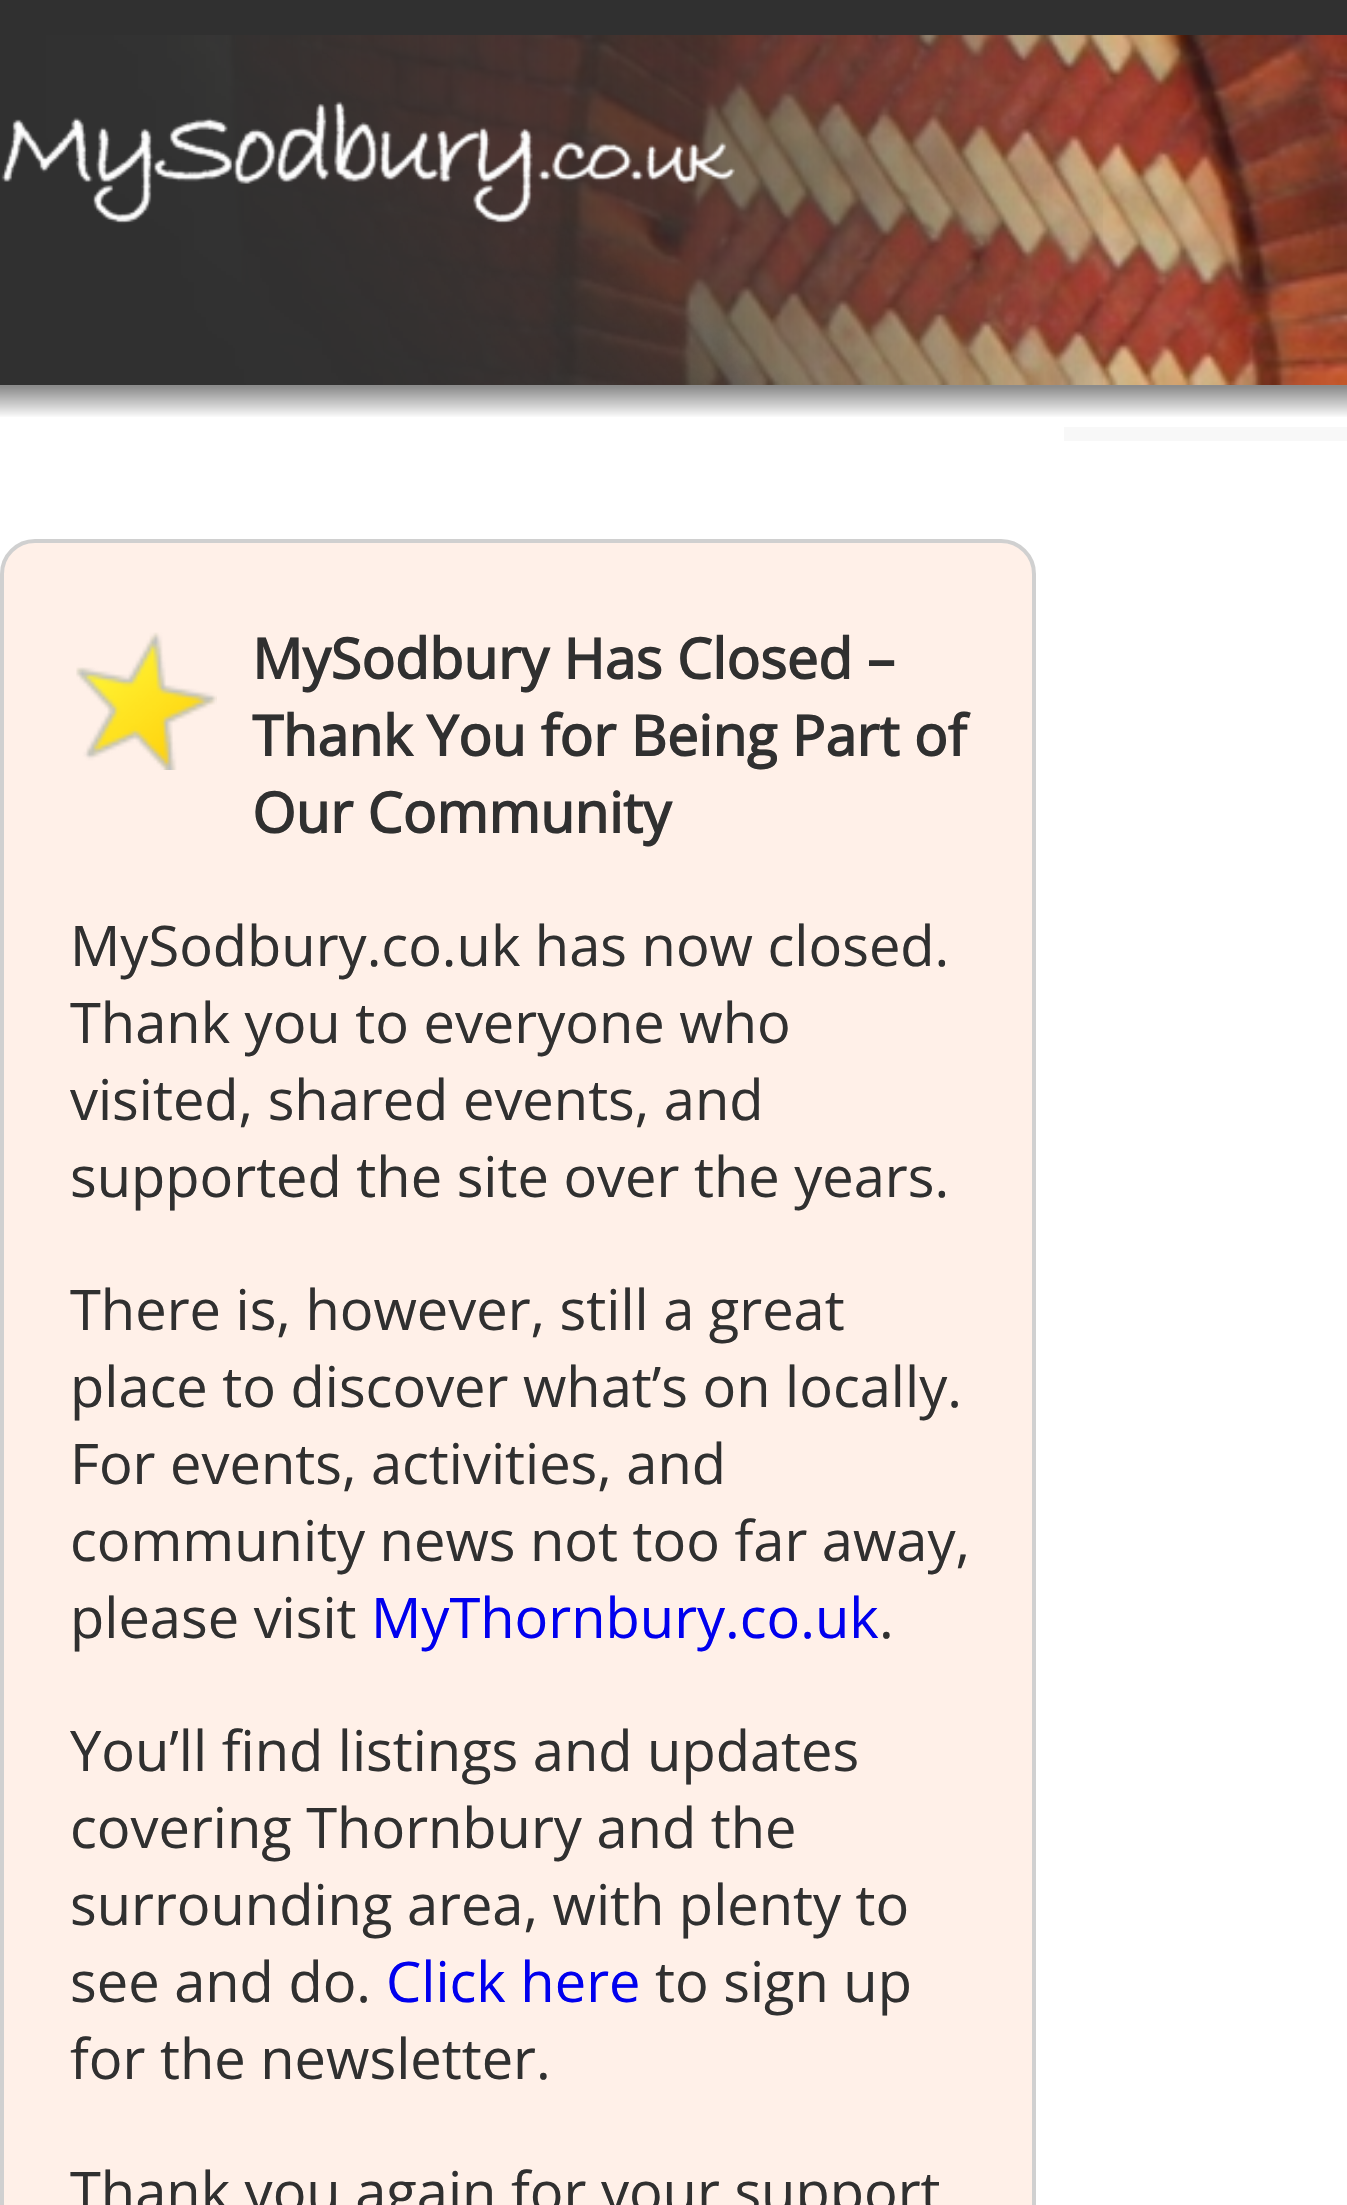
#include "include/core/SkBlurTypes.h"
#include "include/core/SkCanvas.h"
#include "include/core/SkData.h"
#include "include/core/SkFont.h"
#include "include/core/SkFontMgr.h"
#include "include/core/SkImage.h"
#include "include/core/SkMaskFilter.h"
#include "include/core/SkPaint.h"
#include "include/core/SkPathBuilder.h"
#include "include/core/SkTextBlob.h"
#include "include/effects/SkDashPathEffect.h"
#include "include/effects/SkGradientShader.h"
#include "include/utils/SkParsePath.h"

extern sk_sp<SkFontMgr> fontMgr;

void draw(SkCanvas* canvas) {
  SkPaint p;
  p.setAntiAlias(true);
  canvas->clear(SkColorSetRGB(48, 48, 48));
  canvas->drawImageRect(SkImages::DeferredFromEncodedData(SkData::MakeFromFileName("images/2.png")), SkRect::MakeLTRB(114, 35, 1347, 385), SkSamplingOptions());
  canvas->drawImageRect(SkImages::DeferredFromEncodedData(SkData::MakeFromFileName("images/1.png")), SkRect::MakeLTRB(0, 35, 1103, 385), SkSamplingOptions());
  canvas->drawImageRect(SkImages::DeferredFromEncodedData(SkData::MakeFromFileName("images/3.png")), SkRect::MakeLTRB(1, 101, 735, 224), SkSamplingOptions());
  p.setColor(SK_ColorWHITE);
  canvas->drawRect(SkRect::MakeLTRB(0, 417, 1347, 2205), p);
  canvas->drawImageRect(SkImages::DeferredFromEncodedData(SkData::MakeFromFileName("images/4.png")), SkRect::MakeLTRB(0, 385, 1347, 417), SkSamplingOptions());
  p.setColor(SkColorSetRGB(248, 248, 248));
  canvas->drawRect(SkRect::MakeLTRB(1064, 427, 1347, 441), p);
  p.setColor(SkColorSetRGB(255, 240, 232));
  canvas->drawRoundRect(SkRect::MakeLTRB(2, 541, 1034, 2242), 33, 33, p);
  p.setStyle(SkPaint::kStroke_Style);
  p.setStrokeWidth(4);
  p.setColor(SkColorSetRGB(208, 208, 208));
  canvas->drawRoundRect(SkRect::MakeLTRB(2, 541, 1034, 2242), 33, 33, p);
  canvas->drawImageRect(SkImages::DeferredFromEncodedData(SkData::MakeFromFileName("images/5.png")), SkRect::MakeLTRB(76, 632, 217, 770), SkSamplingOptions());
  SkFont font1(fontMgr->matchFamilyStyle("Open Sans", SkFontStyle::Bold()), 56);
  font1.setSubpixel(true);
  p.setStyle(SkPaint::kFill_Style);
  p.setColor(SkColorSetRGB(48, 48, 48));
  canvas->drawString("MySodbury Has Closed –", 252, 679, font1, p);
  canvas->drawString("Thank You for Being Part of", 252, 756, font1, p);
  canvas->drawString("Our Community", 252, 833, font1, p);
  SkFont font2(fontMgr->matchFamilyStyle("Open Sans", SkFontStyle::Normal()), 56);
  font2.setSubpixel(true);
  canvas->drawString("MySodbury.co.uk has now closed.", 70, 966, font2, p);
  canvas->drawString("Thank you to everyone who", 70, 1043, font2, p);
  canvas->drawString("visited, shared events, and", 70, 1120, font2, p);
  canvas->drawString("supported the site over the years.", 70, 1197, font2, p);
  canvas->drawString("There is, however, still a great", 70, 1330, font2, p);
  canvas->drawString("place to discover what’s on locally.", 70, 1407, font2, p);
  canvas->drawString("For events, activities, and", 70, 1484, font2, p);
  canvas->drawString("community news not too far away,", 70, 1561, font2, p);
  canvas->drawString("please visit", 70, 1638, font2, p);
  p.setColor(SkColorSetRGB(0, 0, 238));
  canvas->drawString("MyThornbury.co.uk", 371, 1638, font2, p);
  p.setColor(SkColorSetRGB(48, 48, 48));
  canvas->drawString(".", 879, 1638, font2, p);
  canvas->drawString("You’ll find listings and updates", 70, 1771, font2, p);
  canvas->drawString("covering Thornbury and the", 70, 1848, font2, p);
  canvas->drawString("surrounding area, with plenty to", 70, 1925, font2, p);
  canvas->drawString("see and do.", 70, 2002, font2, p);
  p.setColor(SkColorSetRGB(0, 0, 238));
  canvas->drawString("Click here", 386, 2002, font2, p);
  p.setColor(SkColorSetRGB(48, 48, 48));
  canvas->drawString("to sign up", 655, 2002, font2, p);
  canvas->drawString("for the newsletter.", 70, 2079, font2, p);
  canvas->drawString("Thank you again for your support", 70, 2212, font2, p);
}
